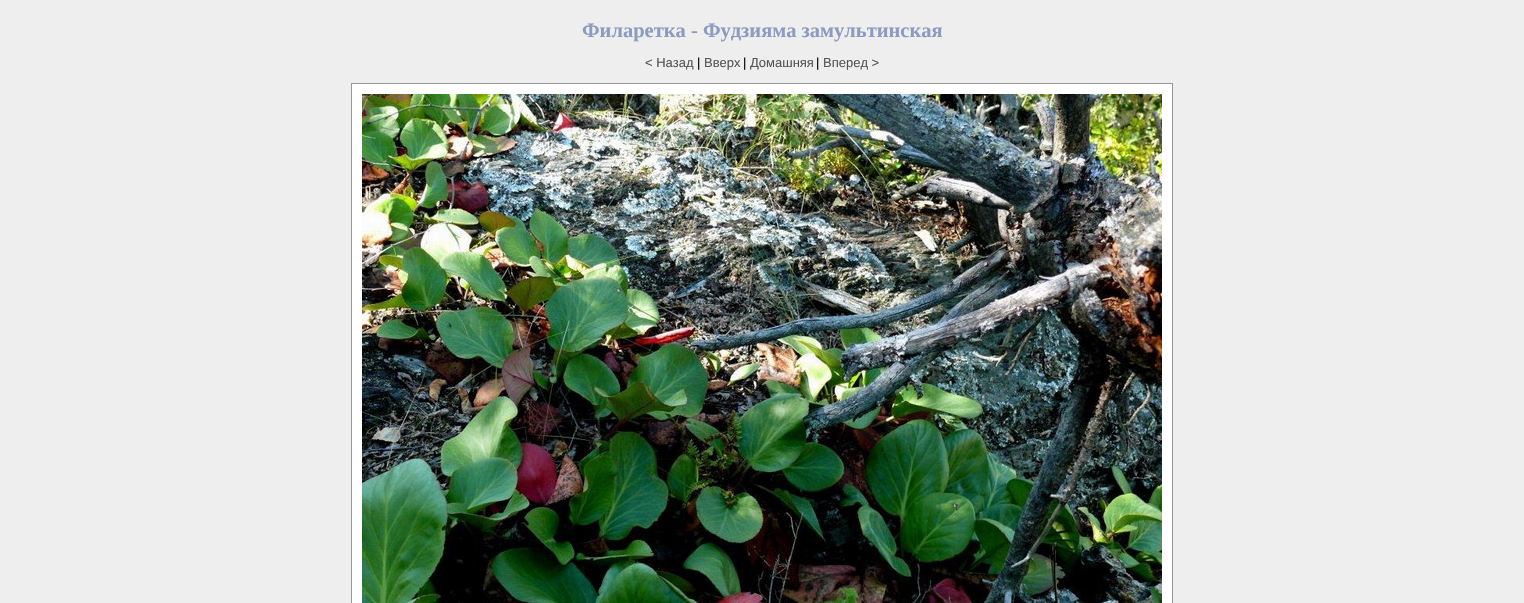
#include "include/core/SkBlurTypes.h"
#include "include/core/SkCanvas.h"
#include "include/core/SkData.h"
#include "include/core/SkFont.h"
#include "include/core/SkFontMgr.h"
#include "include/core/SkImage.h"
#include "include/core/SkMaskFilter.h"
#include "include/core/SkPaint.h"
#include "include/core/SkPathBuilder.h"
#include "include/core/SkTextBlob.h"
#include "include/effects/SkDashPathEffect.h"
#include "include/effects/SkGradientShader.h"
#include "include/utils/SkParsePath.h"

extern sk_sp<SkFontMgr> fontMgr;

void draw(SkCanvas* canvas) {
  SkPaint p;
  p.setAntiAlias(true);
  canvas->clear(SkColorSetRGB(238, 238, 238));
  p.setColor(SK_ColorWHITE);
  canvas->drawRect(SkRect::MakeLTRB(351.5f, 83.5f, 1172.5f, 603.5f), p);
  p.setStyle(SkPaint::kStroke_Style);
  p.setStrokeWidth(1);
  p.setColor(SkColorSetRGB(153, 153, 153));
  canvas->drawRect(SkRect::MakeLTRB(351.5f, 83.5f, 1172.5f, 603.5f), p);
  canvas->drawImageRect(SkImages::DeferredFromEncodedData(SkData::MakeFromFileName("images/1.png")), SkRect::MakeLTRB(362, 94, 1162, 603), SkSamplingOptions());
  SkFont font1(fontMgr->matchFamilyStyle("Liberation Serif", SkFontStyle::Bold()), 20.5f);
  font1.setSubpixel(true);
  p.setStyle(SkPaint::kFill_Style);
  p.setColor(SkColorSetRGB(140, 155, 191));
  canvas->drawString("Филаретка - Фудзияма замультинская", 582, 37, font1, p);
  SkFont font2(fontMgr->matchFamilyStyle("Liberation Sans", SkFontStyle::Normal()), 13);
  font2.setSubpixel(true);
  p.setColor(SkColorSetRGB(85, 85, 85));
  canvas->drawString("< Назад", 645, 67, font2, p);
  p.setColor(SK_ColorBLACK);
  canvas->drawString("|", 697, 67, font2, p);
  p.setColor(SkColorSetRGB(85, 85, 85));
  canvas->drawString("Вверх", 704, 67, font2, p);
  p.setColor(SK_ColorBLACK);
  canvas->drawString("|", 743, 67, font2, p);
  p.setColor(SkColorSetRGB(85, 85, 85));
  canvas->drawString("Домашняя", 750, 67, font2, p);
  p.setColor(SK_ColorBLACK);
  canvas->drawString("|", 816, 67, font2, p);
  p.setColor(SkColorSetRGB(85, 85, 85));
  canvas->drawString("Вперед >", 823, 67, font2, p);
}
